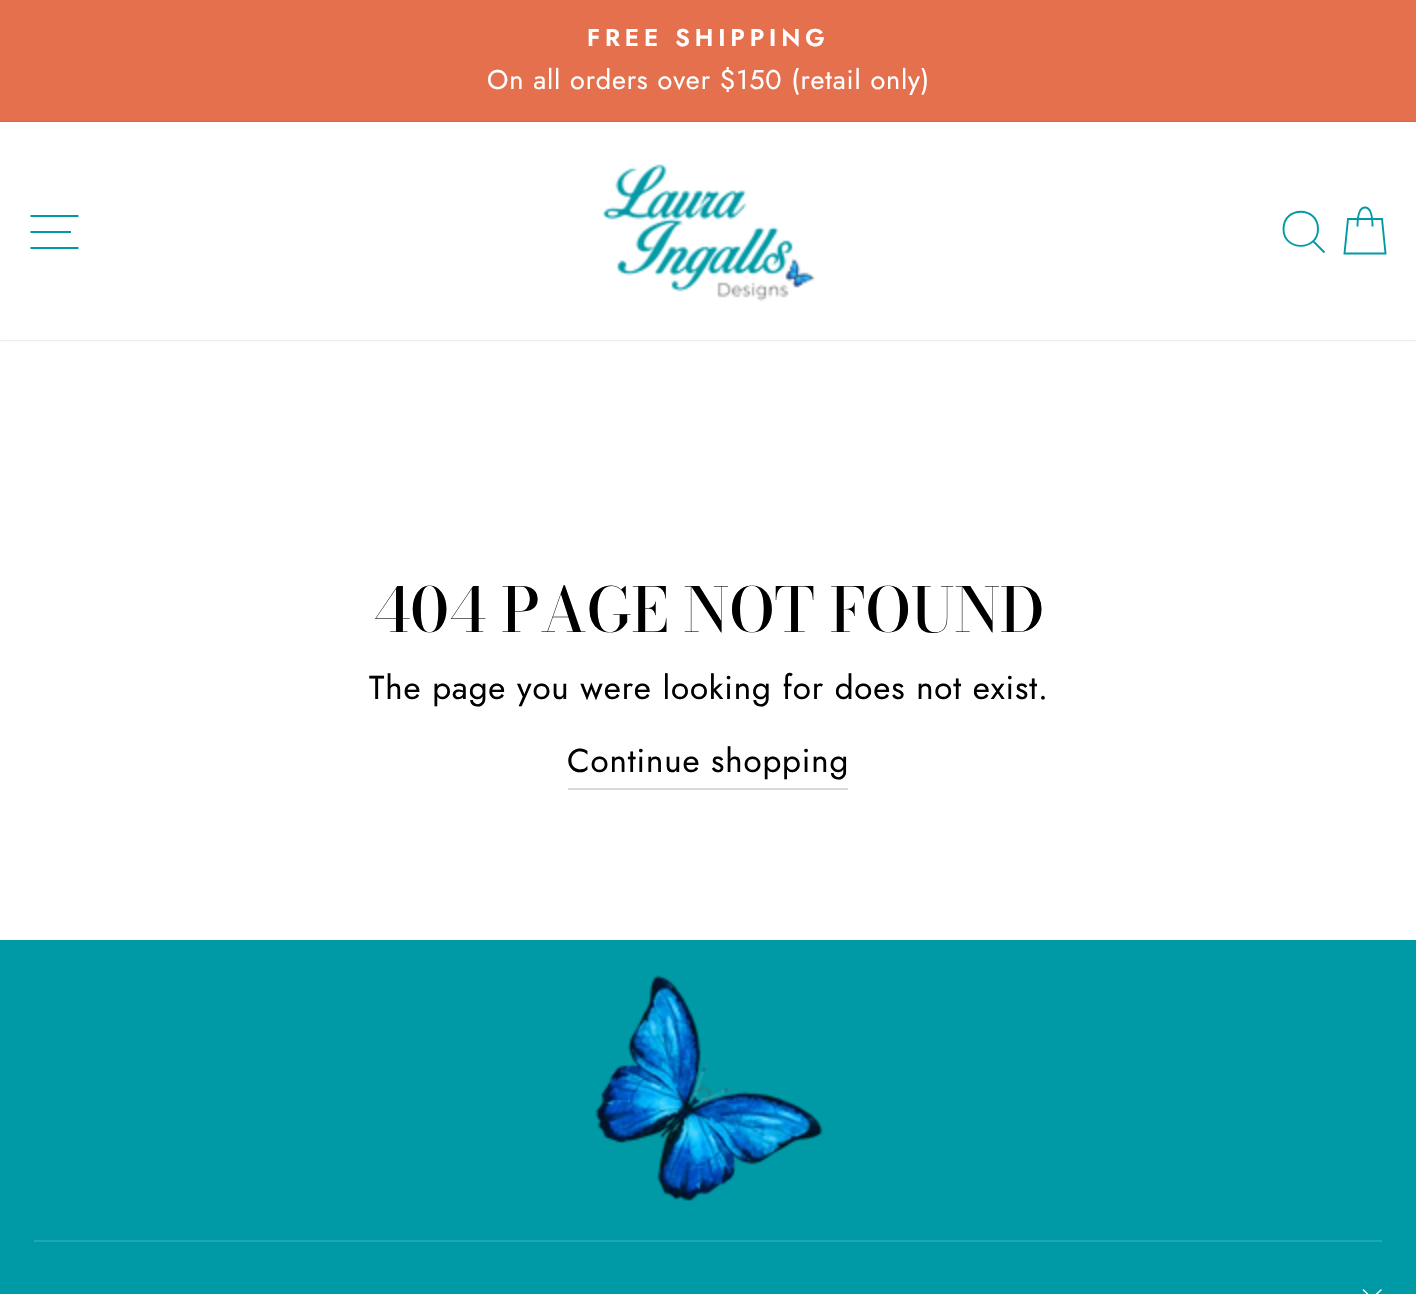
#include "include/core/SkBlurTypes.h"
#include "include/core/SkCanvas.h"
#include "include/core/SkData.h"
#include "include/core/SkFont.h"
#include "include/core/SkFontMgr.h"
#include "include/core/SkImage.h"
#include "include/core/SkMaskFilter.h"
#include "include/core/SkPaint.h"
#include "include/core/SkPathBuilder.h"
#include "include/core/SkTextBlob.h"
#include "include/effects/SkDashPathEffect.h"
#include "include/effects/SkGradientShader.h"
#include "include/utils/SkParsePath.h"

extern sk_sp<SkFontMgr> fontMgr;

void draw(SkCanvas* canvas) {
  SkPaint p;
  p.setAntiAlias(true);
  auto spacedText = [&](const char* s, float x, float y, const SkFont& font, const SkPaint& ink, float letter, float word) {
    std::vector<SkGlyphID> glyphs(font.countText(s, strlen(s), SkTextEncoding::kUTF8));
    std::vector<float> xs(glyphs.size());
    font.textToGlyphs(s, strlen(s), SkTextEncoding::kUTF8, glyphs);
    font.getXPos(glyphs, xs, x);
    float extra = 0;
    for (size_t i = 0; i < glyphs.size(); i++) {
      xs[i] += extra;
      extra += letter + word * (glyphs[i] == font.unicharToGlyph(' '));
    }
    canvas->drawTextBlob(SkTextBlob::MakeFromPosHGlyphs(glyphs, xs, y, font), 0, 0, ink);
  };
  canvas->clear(SK_ColorWHITE);
  p.setColor(SkColorSetRGB(228, 112, 77));
  canvas->drawRect(SkRect::MakeLTRB(0, 0, 1416, 122), p);
  canvas->save();
  canvas->clipPath(SkPathBuilder(SkPathFillType::kEvenOdd).moveTo(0, 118).lineTo(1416, 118).lineTo(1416, 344).lineTo(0, 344).close().moveTo(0, 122).lineTo(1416, 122).lineTo(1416, 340).lineTo(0, 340).close().detach(), true);
  p.setColor(SkColorSetARGB(51, 0, 0, 0));
  p.setMaskFilter(SkMaskFilter::MakeBlur(kNormal_SkBlurStyle, 1));
  canvas->drawRect(SkRect::MakeLTRB(0, 122, 1416, 340), p);
  p.setMaskFilter(nullptr);
  canvas->restore();
  p.setStyle(SkPaint::kStroke_Style);
  p.setStrokeWidth(1.9f);
  p.setColor(SkColorSetRGB(0, 154, 166));
  canvas->drawPath(SkPathBuilder().moveTo(30.5f, 216).lineTo(78.5f, 216).moveTo(30.5f, 232).lineTo(71, 232).moveTo(30.5f, 248).lineTo(78.5f, 248).detach(), p);
  canvas->drawImageRect(SkImages::DeferredFromEncodedData(SkData::MakeFromFileName("images/1.png")), SkRect::MakeLTRB(603, 164, 815, 302), SkSamplingOptions());
  canvas->drawPath(SkPathBuilder().moveTo(1318, 229).cubicTo(1318, 251.5f, 1283.5f, 251.5f, 1283.5f, 229).cubicTo(1283.5f, 206, 1318, 206, 1318, 229).close().moveTo(1324.5f, 252.5f).lineTo(1313.5f, 241.5f).detach(), p);
  canvas->drawPath(SkPathBuilder().moveTo(1357.5f, 226.5f).cubicTo(1357.5f, 211.5f, 1361, 207.5f, 1365, 207.5f).cubicTo(1369, 207.5f, 1372.5f, 211.5f, 1372.5f, 226.5f).moveTo(1348, 219).lineTo(1382, 219).lineTo(1385.5f, 253.5f).lineTo(1344.5f, 253.5f).close().detach(), p);
  p.setStyle(SkPaint::kFill_Style);
  p.setColor(SkColorSetRGB(217, 217, 217));
  canvas->drawRect(SkRect::MakeLTRB(568, 788, 848, 790), p);
  p.setColor(SkColorSetRGB(0, 154, 166));
  canvas->drawRect(SkRect::MakeLTRB(0, 940, 1416, 1294), p);
  canvas->drawImageRect(SkImages::DeferredFromEncodedData(SkData::MakeFromFileName("images/2.png")), SkRect::MakeLTRB(595, 975, 823, 1202), SkSamplingOptions());
  p.setColor(SkColorSetRGB(31, 166, 177));
  canvas->drawRect(SkRect::MakeLTRB(34, 1240, 1382, 1242), p);
  p.setStyle(SkPaint::kStroke_Style);
  p.setStrokeWidth(1.4f);
  p.setColor(SK_ColorWHITE);
  canvas->drawPath(SkPathBuilder().moveTo(1363, 1289.5f).lineTo(1372, 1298.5f).lineTo(1381.5f, 1289.5f).detach(), p);
  SkFont font1(fontMgr->matchFamilyStyle("Jost", SkFontStyle(600, SkFontStyle::kNormal_Width, SkFontStyle::kUpright_Slant)), 24.25f);
  font1.setSubpixel(true);
  p.setStyle(SkPaint::kFill_Style);
  spacedText("FREE SHIPPING", 587, 46, font1, p, 4.9f, 0);
  SkFont font2(fontMgr->matchFamilyStyle("Jost", SkFontStyle::Normal()), 27);
  font2.setSubpixel(true);
  spacedText("On all orders over $150 (retail only)", 487, 89, font2, p, 0.85f, 0);
  SkFont font3(fontMgr->matchFamilyStyle("Bodoni Moda", SkFontStyle(500, SkFontStyle::kNormal_Width, SkFontStyle::kUpright_Slant)), 61.25f);
  font3.setSubpixel(true);
  p.setColor(SK_ColorBLACK);
  canvas->drawString("404 PAGE NOT FOUND", 373, 632, font3, p);
  SkFont font4(fontMgr->matchFamilyStyle("Jost", SkFontStyle::Normal()), 33.1f);
  font4.setSubpixel(true);
  spacedText("The page you were looking for does not exist.", 369, 699, font4, p, 0.85f, 0);
  spacedText("Continue shopping", 567, 772, font4, p, 0.85f, 0);
}
